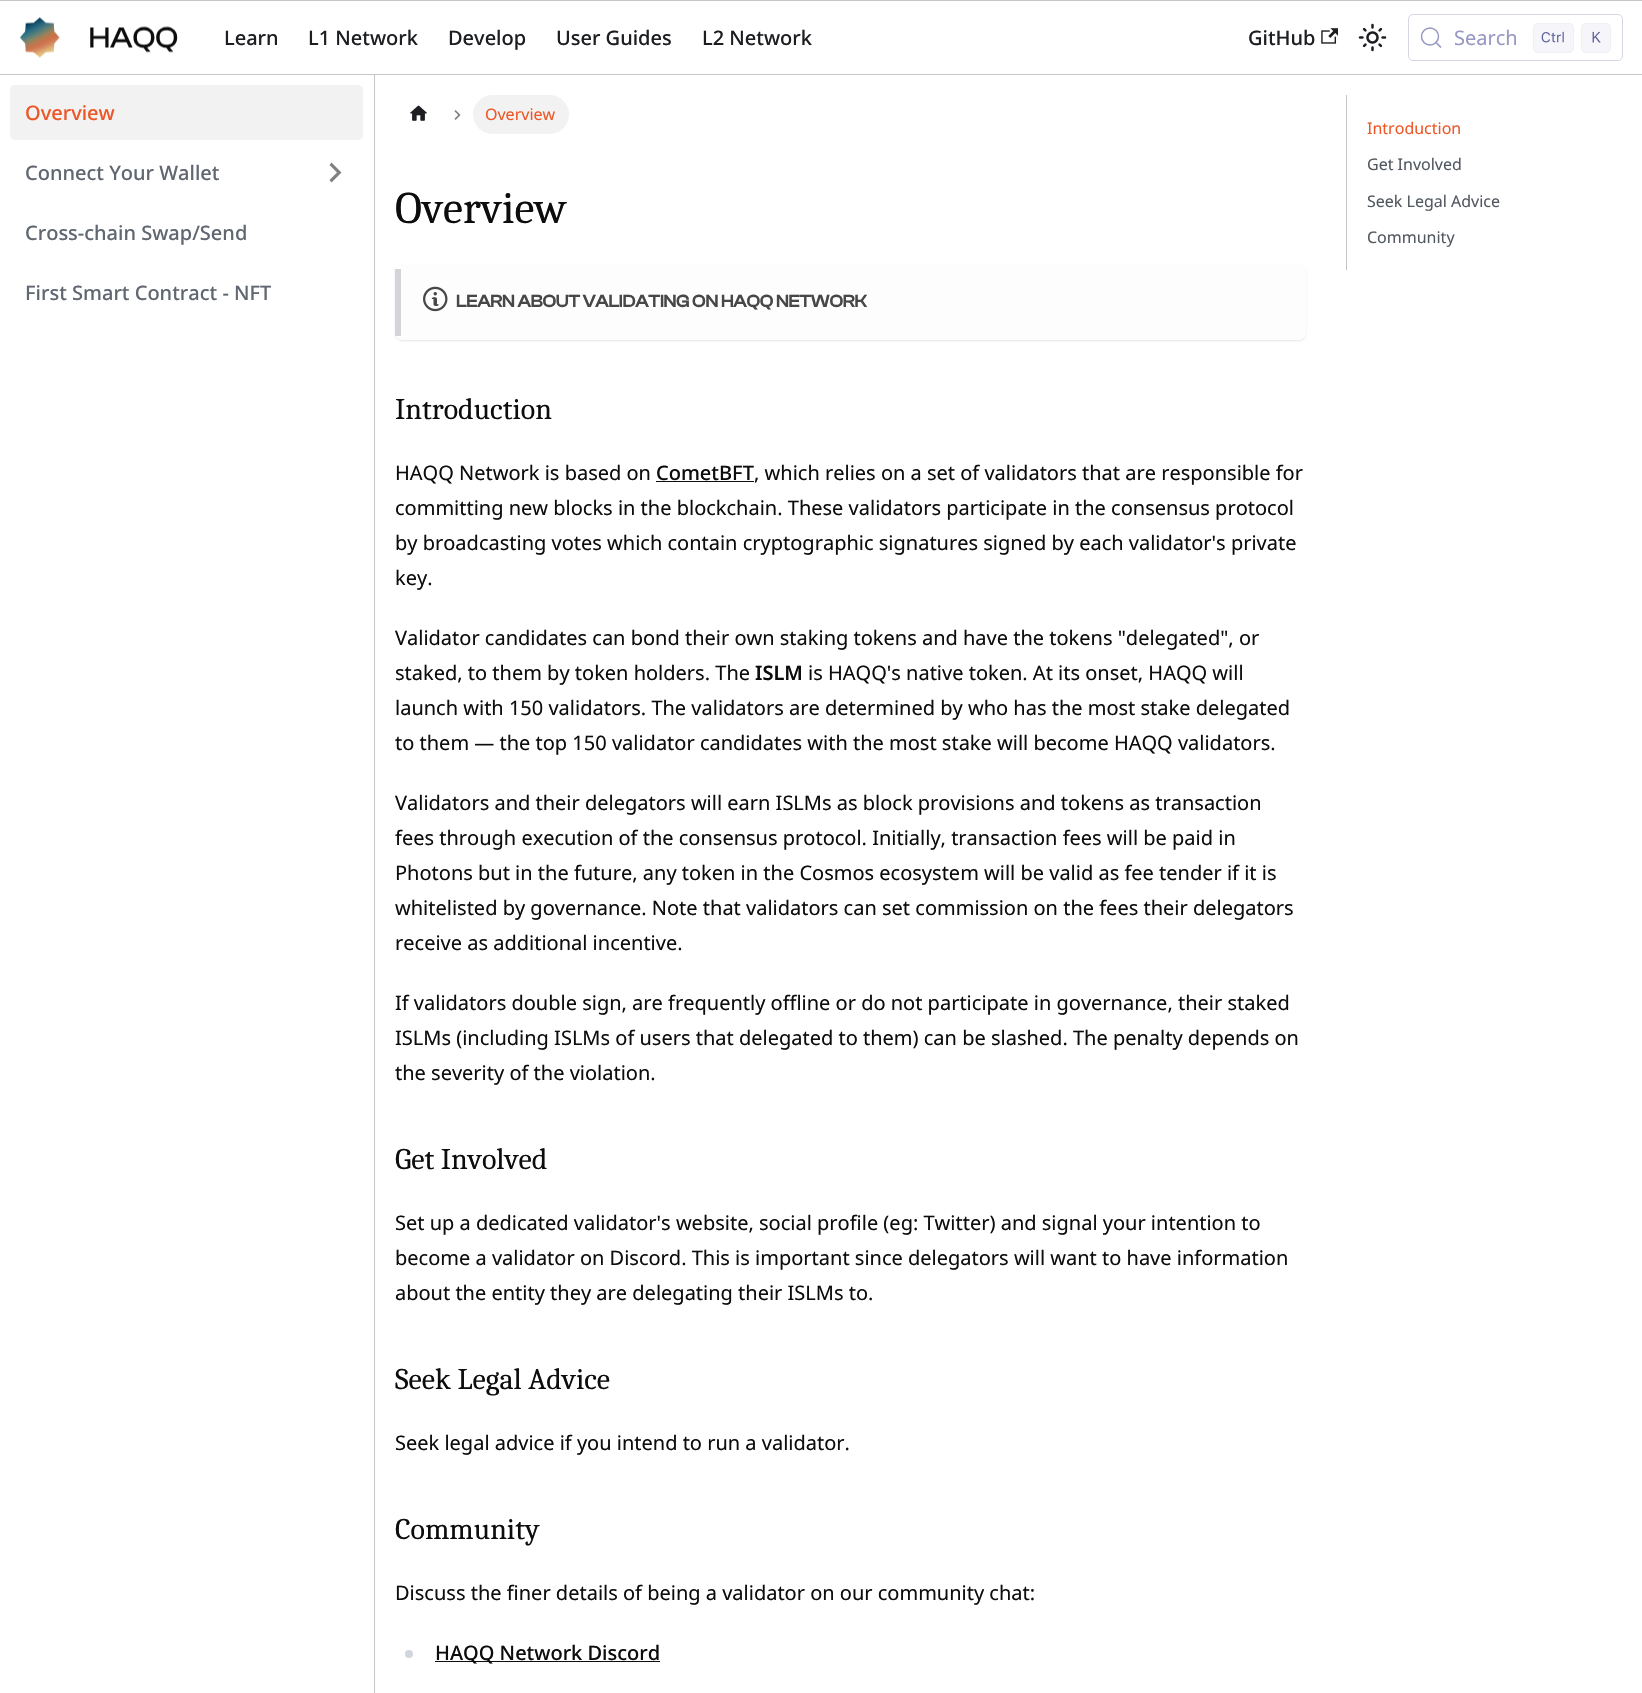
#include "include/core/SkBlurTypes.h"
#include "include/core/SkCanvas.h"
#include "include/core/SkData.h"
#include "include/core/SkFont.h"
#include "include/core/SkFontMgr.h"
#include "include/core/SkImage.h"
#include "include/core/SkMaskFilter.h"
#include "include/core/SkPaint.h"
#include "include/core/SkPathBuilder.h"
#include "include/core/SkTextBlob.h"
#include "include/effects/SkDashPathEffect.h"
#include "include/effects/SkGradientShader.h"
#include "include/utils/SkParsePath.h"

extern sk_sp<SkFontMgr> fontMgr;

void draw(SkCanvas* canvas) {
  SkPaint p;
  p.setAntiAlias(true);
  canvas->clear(SK_ColorWHITE);
  p.setColor(SkColorSetRGB(197, 197, 197));
  canvas->drawRect(SkRect::MakeLTRB(0, 0, 1642, 1), p);
  canvas->drawRect(SkRect::MakeLTRB(0, 74, 1642, 75), p);
  canvas->drawImageRect(SkImages::DeferredFromEncodedData(SkData::MakeFromFileName("images/1.png")), SkRect::MakeLTRB(20, 17, 178, 58), SkSamplingOptions());
  canvas->drawImageRect(SkImages::DeferredFromEncodedData(SkData::MakeFromFileName("images/2.png")), SkRect::MakeLTRB(1321, 28, 1338, 44), SkSamplingOptions());
  canvas->drawImageRect(SkImages::DeferredFromEncodedData(SkData::MakeFromFileName("images/3.png")), SkRect::MakeLTRB(1358, 23, 1387, 52), SkSamplingOptions());
  p.setStyle(SkPaint::kStroke_Style);
  p.setStrokeWidth(1);
  p.setColor(SkColorSetRGB(214, 214, 231));
  canvas->drawRoundRect(SkRect::MakeLTRB(1408.5f, 14.5f, 1622.5f, 60.5f), 4.5f, 4.5f, p);
  p.setStrokeWidth(1.5f);
  p.setColor(SkColorSetRGB(150, 152, 195));
  canvas->drawCircle(1430, 36.5f, 8.5f, p);
  p.setStrokeWidth(1.7f);
  p.setStrokeCap(SkPaint::kRound_Cap);
  p.setStrokeJoin(SkPaint::kRound_Join);
  canvas->drawPath(SkPathBuilder().moveTo(1440.5f, 47).lineTo(1436, 42.5f).detach(), p);
  p.setStyle(SkPaint::kFill_Style);
  p.setColor(SkColorSetRGB(245, 245, 250));
  canvas->drawRoundRect(SkRect::MakeLTRB(1533, 23, 1574, 53), 5, 5, p);
  p.setStyle(SkPaint::kStroke_Style);
  p.setStrokeWidth(1);
  p.setStrokeCap(SkPaint::kButt_Cap);
  p.setStrokeJoin(SkPaint::kMiter_Join);
  p.setColor(SkColorSetARGB(51, 214, 214, 231));
  canvas->drawRoundRect(SkRect::MakeLTRB(1533.5f, 23.5f, 1573.5f, 52.5f), 4.5f, 4.5f, p);
  canvas->drawImageRect(SkImages::DeferredFromEncodedData(SkData::MakeFromFileName("images/4.png")), SkRect::MakeLTRB(1541, 31, 1564, 43), SkSamplingOptions());
  p.setStyle(SkPaint::kFill_Style);
  p.setColor(SkColorSetRGB(245, 245, 250));
  canvas->drawRoundRect(SkRect::MakeLTRB(1581, 23, 1611, 53), 5, 5, p);
  p.setStyle(SkPaint::kStroke_Style);
  p.setColor(SkColorSetARGB(51, 214, 214, 231));
  canvas->drawRoundRect(SkRect::MakeLTRB(1581.5f, 23.5f, 1610.5f, 52.5f), 4.5f, 4.5f, p);
  canvas->drawImageRect(SkImages::DeferredFromEncodedData(SkData::MakeFromFileName("images/5.png")), SkRect::MakeLTRB(1592, 31, 1601, 43), SkSamplingOptions());
  p.setStyle(SkPaint::kFill_Style);
  p.setColor(SkColorSetRGB(197, 197, 197));
  canvas->drawRect(SkRect::MakeLTRB(374, 75, 375, 1693), p);
  p.setColor(SkColorSetRGB(242, 242, 242));
  canvas->drawRoundRect(SkRect::MakeLTRB(10, 85, 363, 140), 5, 5, p);
  p.setColor(SkColorSetRGB(128, 128, 128));
  canvas->drawPath(SkPathBuilder().moveTo(329.5f, 165).lineTo(337, 172.5f).lineTo(329.5f, 180).lineTo(331.5f, 182.5f).lineTo(341.5f, 172.5f).lineTo(331.5f, 162.5f).close().detach(), p);
  canvas->drawImageRect(SkImages::DeferredFromEncodedData(SkData::MakeFromFileName("images/6.png")), SkRect::MakeLTRB(410, 105, 427, 121), SkSamplingOptions());
  canvas->drawImageRect(SkImages::DeferredFromEncodedData(SkData::MakeFromFileName("images/7.png")), SkRect::MakeLTRB(454, 110, 461, 120), SkSamplingOptions());
  p.setColor(SkColorSetRGB(242, 242, 242));
  canvas->drawRoundRect(SkRect::MakeLTRB(473, 95, 569, 134), 19.5f, 19.5f, p);
  canvas->save();
  canvas->clipPath(SkPathBuilder(SkPathFillType::kEvenOdd).moveTo(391, 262).lineTo(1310, 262).lineTo(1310, 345).lineTo(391, 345).close().moveTo(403, 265).lineTo(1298, 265).cubicTo(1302.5f, 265, 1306, 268.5f, 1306, 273).lineTo(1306, 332).cubicTo(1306, 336.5f, 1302.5f, 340, 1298, 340).lineTo(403, 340).cubicTo(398.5f, 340, 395, 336.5f, 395, 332).lineTo(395, 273).cubicTo(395, 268.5f, 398.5f, 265, 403, 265).close().detach(), true);
  p.setColor(SkColorSetARGB(26, 0, 0, 0));
  p.setMaskFilter(SkMaskFilter::MakeBlur(kNormal_SkBlurStyle, 1));
  canvas->drawRoundRect(SkRect::MakeLTRB(395, 266, 1306, 341), 8, 8, p);
  p.setMaskFilter(nullptr);
  canvas->restore();
  p.setColor(SkColorSetRGB(253, 253, 254));
  canvas->drawPath(SkPathBuilder().moveTo(403, 265).lineTo(1298, 265).cubicTo(1303, 265, 1306, 269, 1306, 273).lineTo(1306, 332).cubicTo(1306, 336, 1303, 340, 1298, 340).lineTo(403, 340).cubicTo(402, 340, 401, 336, 401, 332).lineTo(401, 273).cubicTo(401, 269, 402, 265, 403, 265).close().detach(), p);
  p.setColor(SkColorSetRGB(212, 213, 216));
  canvas->drawRect(SkRect::MakeLTRB(395, 269, 401, 336), p);
  canvas->drawImageRect(SkImages::DeferredFromEncodedData(SkData::MakeFromFileName("images/8.png")), SkRect::MakeLTRB(423, 286, 448, 312), SkSamplingOptions());
  p.setColor(SkColorSetRGB(13, 13, 14));
  canvas->drawRect(SkRect::MakeLTRB(656, 481, 754, 482), p);
  p.setColor(SkColorSetRGB(209, 213, 220));
  canvas->drawCircle(409, 1654, 4, p);
  p.setColor(SkColorSetRGB(13, 13, 14));
  canvas->drawRect(SkRect::MakeLTRB(435, 1661, 660, 1662), p);
  p.setColor(SkColorSetRGB(197, 197, 197));
  canvas->drawRect(SkRect::MakeLTRB(1346, 95, 1347, 270), p);
  SkFont font1(fontMgr->matchFamilyStyle("Noto Sans", SkFontStyle(500, SkFontStyle::kNormal_Width, SkFontStyle::kUpright_Slant)), 20);
  font1.setSubpixel(true);
  p.setColor(SkColorSetRGB(28, 30, 33));
  canvas->drawString("Learn", 224, 45, font1, p);
  canvas->drawString("L1 Network", 308, 45, font1, p);
  canvas->drawString("Develop", 448, 45, font1, p);
  canvas->drawString("User Guides", 556, 45, font1, p);
  canvas->drawString("L2 Network", 702, 45, font1, p);
  canvas->drawString("GitHub", 1248, 45, font1, p);
  SkFont font2(fontMgr->matchFamilyStyle("Noto Sans", SkFontStyle::Normal()), 20);
  font2.setSubpixel(true);
  p.setColor(SkColorSetRGB(150, 152, 195));
  canvas->drawString("Search", 1454, 45, font2, p);
  p.setColor(SkColorSetRGB(236, 87, 40));
  canvas->drawString("Overview", 25, 120, font1, p);
  p.setColor(SkColorSetRGB(96, 103, 112));
  canvas->drawString("Connect Your Wallet", 25, 180, font1, p);
  canvas->drawString("Cross-chain Swap/Send", 25, 240, font1, p);
  canvas->drawString("First Smart Contract - NFT", 25, 300, font1, p);
  SkFont font3(fontMgr->matchFamilyStyle("Noto Sans", SkFontStyle::Normal()), 16);
  font3.setSubpixel(true);
  p.setColor(SkColorSetRGB(236, 87, 40));
  canvas->drawString("Overview", 485, 120, font3, p);
  SkFont font4(fontMgr->matchFamilyStyle("Caladea", SkFontStyle::Normal()), 45);
  font4.setSubpixel(true);
  p.setColor(SkColorSetRGB(13, 13, 14));
  canvas->drawString("Overview", 395, 223, font4, p);
  SkFont font5(fontMgr->matchFamilyStyle("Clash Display", SkFontStyle::Bold()), 17.5f);
  font5.setSubpixel(true);
  p.setColor(SkColorSetRGB(71, 71, 72));
  canvas->drawString("LEARN ABOUT VALIDATING ON HAQQ NETWORK", 456, 307, font5, p);
  SkFont font6(fontMgr->matchFamilyStyle("Caladea", SkFontStyle::Normal()), 30);
  font6.setSubpixel(true);
  p.setColor(SkColorSetRGB(13, 13, 14));
  canvas->drawString("Introduction", 395, 419, font6, p);
  canvas->drawString("HAQQ Network is based on", 395, 480, font2, p);
  canvas->drawString("CometBFT", 656, 480, font1, p);
  canvas->drawString(", which relies on a set of validators that are responsible for", 754, 480, font2, p);
  canvas->drawString("committing new blocks in the blockchain. These validators participate in the consensus protocol", 395, 515, font2, p);
  canvas->drawString("by broadcasting votes which contain cryptographic signatures signed by each validator's private", 395, 550, font2, p);
  canvas->drawString("key.", 395, 585, font2, p);
  canvas->drawString("Validator candidates can bond their own staking tokens and have the tokens \"delegated\", or", 395, 645, font2, p);
  canvas->drawString("staked, to them by token holders. The", 395, 680, font2, p);
  SkFont font7(fontMgr->matchFamilyStyle("Noto Sans", SkFontStyle(600, SkFontStyle::kNormal_Width, SkFontStyle::kUpright_Slant)), 20);
  font7.setSubpixel(true);
  canvas->drawString("ISLM", 755, 680, font7, p);
  canvas->drawString("is HAQQ's native token. At its onset, HAQQ will", 808, 680, font2, p);
  canvas->drawString("launch with 150 validators. The validators are determined by who has the most stake delegated", 395, 715, font2, p);
  canvas->drawString("to them — the top 150 validator candidates with the most stake will become HAQQ validators.", 395, 750, font2, p);
  canvas->drawString("Validators and their delegators will earn ISLMs as block provisions and tokens as transaction", 395, 810, font2, p);
  canvas->drawString("fees through execution of the consensus protocol. Initially, transaction fees will be paid in", 395, 845, font2, p);
  canvas->drawString("Photons but in the future, any token in the Cosmos ecosystem will be valid as fee tender if it is", 395, 880, font2, p);
  canvas->drawString("whitelisted by governance. Note that validators can set commission on the fees their delegators", 395, 915, font2, p);
  canvas->drawString("receive as additional incentive.", 395, 950, font2, p);
  canvas->drawString("If validators double sign, are frequently offline or do not participate in governance, their staked", 395, 1010, font2, p);
  canvas->drawString("ISLMs (including ISLMs of users that delegated to them) can be slashed. The penalty depends on", 395, 1045, font2, p);
  canvas->drawString("the severity of the violation.", 395, 1080, font2, p);
  canvas->drawString("Get Involved", 395, 1169, font6, p);
  canvas->drawString("Set up a dedicated validator's website, social profile (eg: Twitter) and signal your intention to", 395, 1230, font2, p);
  canvas->drawString("become a validator on Discord. This is important since delegators will want to have information", 395, 1265, font2, p);
  canvas->drawString("about the entity they are delegating their ISLMs to.", 395, 1300, font2, p);
  canvas->drawString("Seek Legal Advice", 395, 1389, font6, p);
  canvas->drawString("Seek legal advice if you intend to run a validator.", 395, 1450, font2, p);
  canvas->drawString("Community", 395, 1539, font6, p);
  canvas->drawString("Discuss the finer details of being a validator on our community chat:", 395, 1600, font2, p);
  canvas->drawString("HAQQ Network Discord", 435, 1660, font1, p);
  p.setColor(SkColorSetRGB(236, 87, 40));
  canvas->drawString("Introduction", 1367, 134, font3, p);
  p.setColor(SkColorSetRGB(82, 88, 96));
  canvas->drawString("Get Involved", 1367, 170, font3, p);
  canvas->drawString("Seek Legal Advice", 1367, 207, font3, p);
  canvas->drawString("Community", 1367, 243, font3, p);
}
